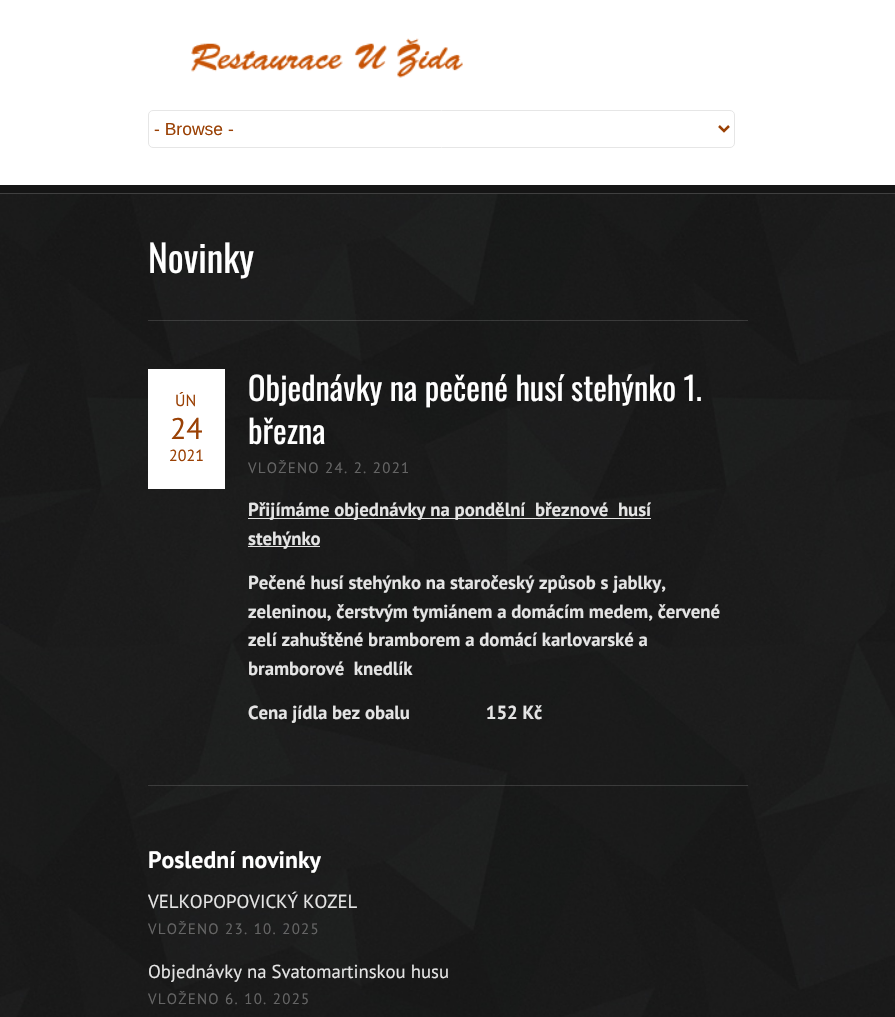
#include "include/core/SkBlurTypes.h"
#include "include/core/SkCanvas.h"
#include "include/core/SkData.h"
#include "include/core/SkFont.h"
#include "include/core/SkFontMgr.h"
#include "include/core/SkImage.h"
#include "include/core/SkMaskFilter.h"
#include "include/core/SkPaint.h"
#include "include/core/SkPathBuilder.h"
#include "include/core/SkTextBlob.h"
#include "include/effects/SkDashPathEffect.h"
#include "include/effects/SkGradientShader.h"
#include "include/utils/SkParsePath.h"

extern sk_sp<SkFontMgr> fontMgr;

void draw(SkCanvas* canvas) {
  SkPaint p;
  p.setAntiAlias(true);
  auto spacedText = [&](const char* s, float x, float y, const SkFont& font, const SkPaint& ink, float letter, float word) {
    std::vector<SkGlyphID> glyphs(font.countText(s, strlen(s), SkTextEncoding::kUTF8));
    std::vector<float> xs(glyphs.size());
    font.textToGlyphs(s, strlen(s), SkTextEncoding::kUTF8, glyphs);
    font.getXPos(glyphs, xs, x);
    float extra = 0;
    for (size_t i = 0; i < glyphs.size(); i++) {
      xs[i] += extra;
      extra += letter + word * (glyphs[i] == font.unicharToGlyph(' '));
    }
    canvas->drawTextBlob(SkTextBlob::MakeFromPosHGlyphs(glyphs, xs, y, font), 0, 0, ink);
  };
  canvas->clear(SK_ColorWHITE);
  canvas->drawImageRect(SkImages::DeferredFromEncodedData(SkData::MakeFromFileName("images/1.png")), SkRect::MakeLTRB(0, 194, 895, 1017), SkSamplingOptions());
  canvas->drawImageRect(SkImages::DeferredFromEncodedData(SkData::MakeFromFileName("images/2.png")), SkRect::MakeLTRB(191, 38, 463, 78), SkSamplingOptions());
  p.setStyle(SkPaint::kStroke_Style);
  p.setStrokeWidth(1);
  p.setColor(SkColorSetRGB(230, 230, 230));
  canvas->drawRoundRect(SkRect::MakeLTRB(148.5f, 110.5f, 734.5f, 147.5f), 4.5f, 4.5f, p);
  p.setStrokeWidth(2.5f);
  p.setColor(SkColorSetRGB(154, 65, 5));
  canvas->drawPath(SkPathBuilder().moveTo(719, 126).lineTo(724, 131).lineTo(729, 126).detach(), p);
  p.setStyle(SkPaint::kFill_Style);
  p.setColor(SkColorSetRGB(21, 21, 21));
  canvas->drawRect(SkRect::MakeLTRB(0, 185, 895, 193), p);
  p.setColor(SkColorSetRGB(64, 64, 64));
  canvas->drawRect(SkRect::MakeLTRB(0, 193, 895, 194), p);
  p.setColor(SkColorSetARGB(36, 255, 255, 255));
  canvas->drawRect(SkRect::MakeLTRB(148, 320, 748, 321), p);
  p.setColor(SK_ColorWHITE);
  canvas->drawRect(SkRect::MakeLTRB(148, 369, 225, 489), p);
  p.setColor(SkColorSetRGB(228, 228, 228));
  canvas->drawRect(SkRect::MakeLTRB(248, 518, 651, 519), p);
  canvas->drawRect(SkRect::MakeLTRB(248, 546, 320, 547), p);
  p.setColor(SkColorSetARGB(36, 255, 255, 255));
  canvas->drawRect(SkRect::MakeLTRB(148, 785, 748, 786), p);
  SkFont font1(fontMgr->matchFamilyStyle("Liberation Sans", SkFontStyle::Normal()), 17.5f);
  font1.setSubpixel(true);
  p.setColor(SkColorSetRGB(154, 65, 5));
  canvas->drawString("- Browse -", 154, 135, font1, p);
  SkFont font2(fontMgr->matchFamilyStyle("Oswald", SkFontStyle::Normal()), 37.5f);
  font2.setSubpixel(true);
  p.setColor(SK_ColorWHITE);
  canvas->drawString("Novinky", 148, 273, font2, p);
  SkFont font3(fontMgr->matchFamilyStyle("PT Sans", SkFontStyle::Normal()), 16);
  font3.setSubpixel(true);
  p.setColor(SkColorSetRGB(154, 65, 5));
  canvas->drawString("ÚN", 175, 406, font3, p);
  SkFont font4(fontMgr->matchFamilyStyle("PT Sans", SkFontStyle::Normal()), 30);
  font4.setSubpixel(true);
  canvas->drawString("24", 170, 439, font4, p);
  canvas->drawString("2021", 169, 461, font3, p);
  SkFont font5(fontMgr->matchFamilyStyle("Oswald", SkFontStyle::Normal()), 32.5f);
  font5.setSubpixel(true);
  p.setColor(SK_ColorWHITE);
  canvas->drawString("Objednávky na pečené husí stehýnko 1.", 248, 401, font5, p);
  canvas->drawString("března", 248, 444, font5, p);
  SkFont font6(fontMgr->matchFamilyStyle("PT Sans", SkFontStyle::Normal()), 15);
  font6.setSubpixel(true);
  p.setColor(SkColorSetRGB(101, 101, 101));
  spacedText("VLOŽENO 24. 2. 2021", 248, 473, font6, p, 1.25f, 0);
  SkFont font7(fontMgr->matchFamilyStyle("PT Sans", SkFontStyle::Bold()), 18.75f);
  font7.setSubpixel(true);
  p.setColor(SkColorSetRGB(228, 228, 228));
  canvas->drawString("Přijímáme objednávky na pondělní  březnové  husí", 248, 516, font7, p);
  canvas->drawString("stehýnko", 248, 545, font7, p);
  canvas->drawString("Pečené husí stehýnko na staročeský způsob s jablky,", 248, 589, font7, p);
  canvas->drawString("zeleninou, čerstvým tymiánem a domácím medem, červené", 248, 618, font7, p);
  canvas->drawString("zelí zahuštěné bramborem a domácí karlovarské a", 248, 646, font7, p);
  canvas->drawString("bramborové  knedlík", 248, 675, font7, p);
  canvas->drawString("Cena jídla bez obalu                152 Kč", 248, 719, font7, p);
  SkFont font8(fontMgr->matchFamilyStyle("PT Sans", SkFontStyle::Bold()), 23.75f);
  font8.setSubpixel(true);
  p.setColor(SK_ColorWHITE);
  canvas->drawString("Poslední novinky", 148, 868, font8, p);
  SkFont font9(fontMgr->matchFamilyStyle("PT Sans", SkFontStyle::Normal()), 18.75f);
  font9.setSubpixel(true);
  p.setColor(SkColorSetRGB(228, 228, 228));
  canvas->drawString("VELKOPOPOVICKÝ KOZEL", 148, 908, font9, p);
  p.setColor(SkColorSetRGB(101, 101, 101));
  spacedText("VLOŽENO 23. 10. 2025", 148, 934, font6, p, 1.25f, 0);
  p.setColor(SkColorSetRGB(228, 228, 228));
  canvas->drawString("Objednávky na Svatomartinskou husu", 148, 978, font9, p);
  p.setColor(SkColorSetRGB(101, 101, 101));
  spacedText("VLOŽENO 6. 10. 2025", 148, 1004, font6, p, 1.25f, 0);
}
